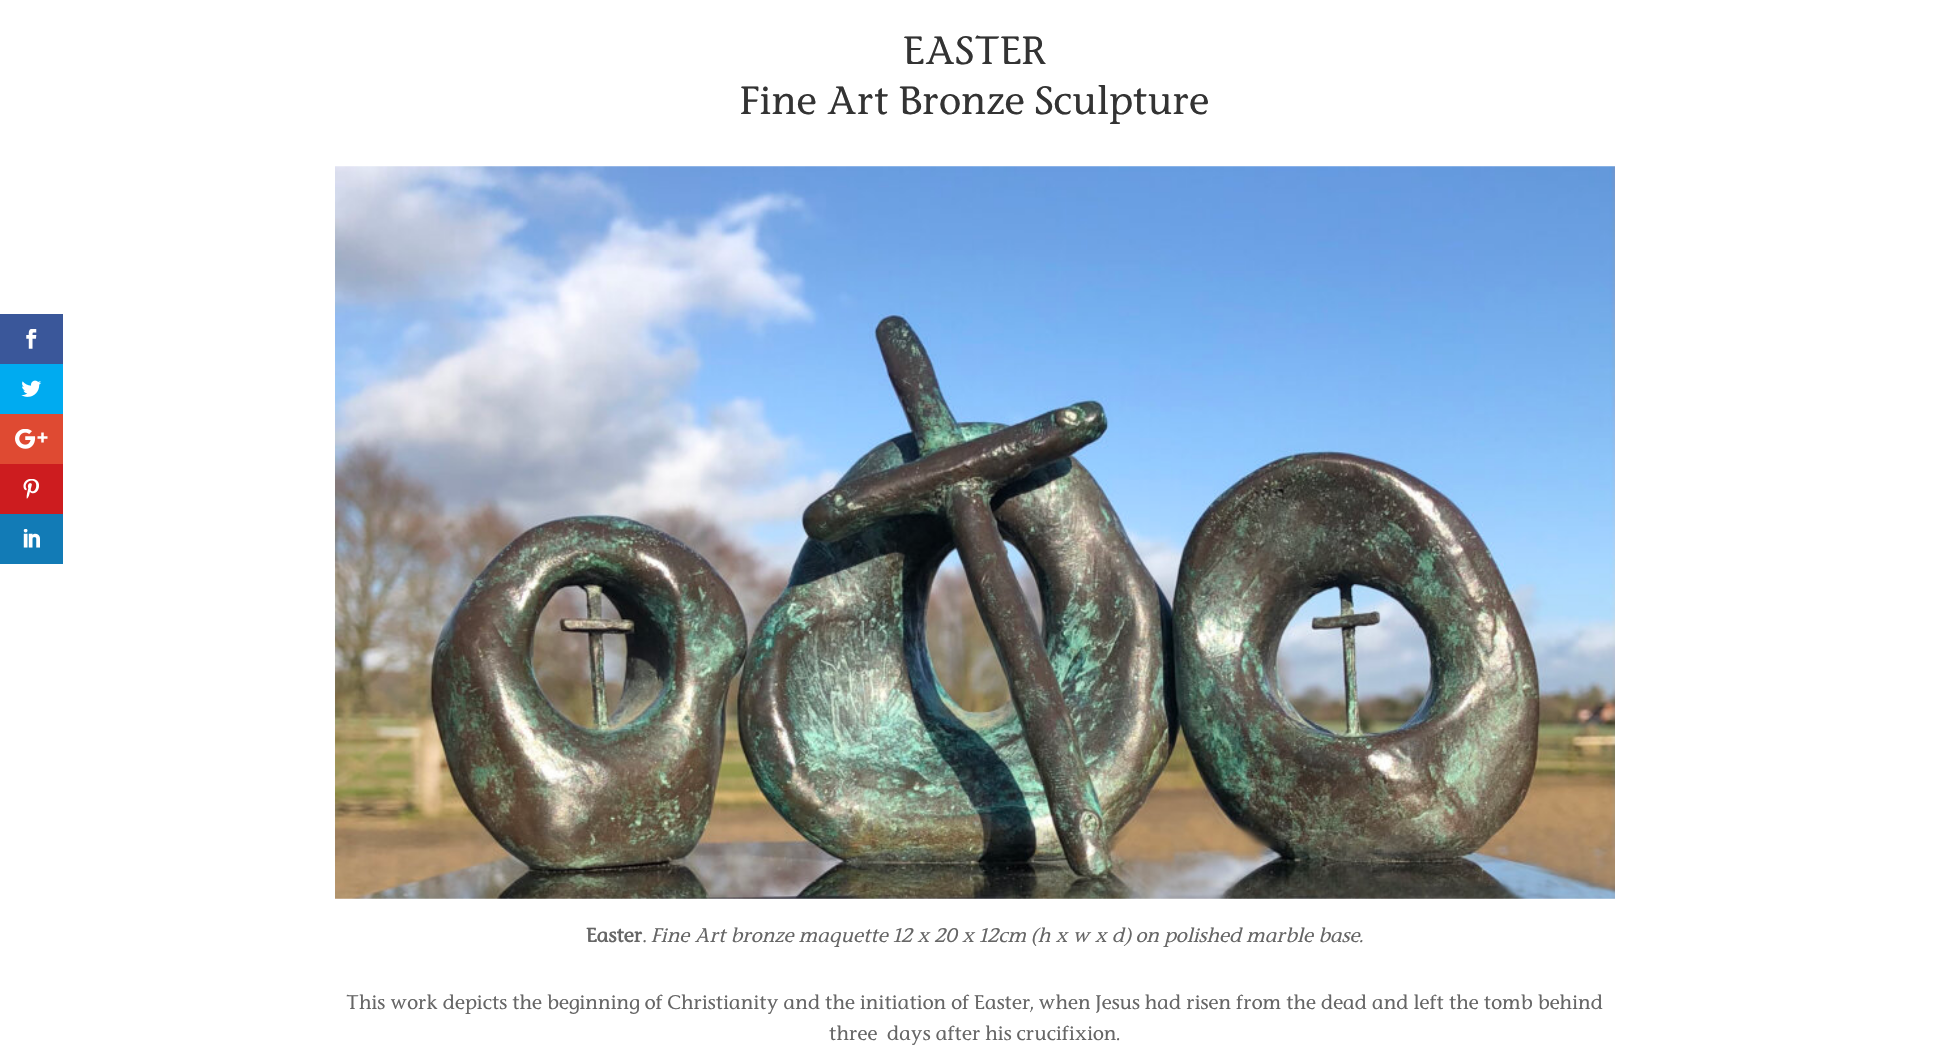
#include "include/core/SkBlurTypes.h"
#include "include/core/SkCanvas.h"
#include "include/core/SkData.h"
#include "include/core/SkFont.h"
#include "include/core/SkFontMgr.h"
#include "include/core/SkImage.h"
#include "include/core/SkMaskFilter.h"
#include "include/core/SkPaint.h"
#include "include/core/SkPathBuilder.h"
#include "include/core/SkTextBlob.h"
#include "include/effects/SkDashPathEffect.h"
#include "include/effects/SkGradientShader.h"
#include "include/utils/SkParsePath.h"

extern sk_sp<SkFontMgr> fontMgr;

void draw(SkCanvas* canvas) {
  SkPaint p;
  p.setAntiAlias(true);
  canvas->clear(SK_ColorWHITE);
  p.setColor(SkColorSetRGB(58, 87, 154));
  canvas->drawRect(SkRect::MakeLTRB(0, 314, 63, 364), p);
  canvas->drawImageRect(SkImages::DeferredFromEncodedData(SkData::MakeFromFileName("images/1.png")), SkRect::MakeLTRB(26, 329, 37, 349), SkSamplingOptions());
  p.setColor(SkColorSetRGB(0, 171, 240));
  canvas->drawRect(SkRect::MakeLTRB(0, 364, 63, 414), p);
  canvas->drawImageRect(SkImages::DeferredFromEncodedData(SkData::MakeFromFileName("images/2.png")), SkRect::MakeLTRB(21, 380, 42, 397), SkSamplingOptions());
  p.setColor(SkColorSetRGB(223, 74, 50));
  canvas->drawRect(SkRect::MakeLTRB(0, 414, 63, 464), p);
  canvas->drawImageRect(SkImages::DeferredFromEncodedData(SkData::MakeFromFileName("images/3.png")), SkRect::MakeLTRB(15, 429, 48, 449), SkSamplingOptions());
  p.setColor(SkColorSetRGB(205, 28, 31));
  canvas->drawRect(SkRect::MakeLTRB(0, 464, 63, 514), p);
  canvas->drawImageRect(SkImages::DeferredFromEncodedData(SkData::MakeFromFileName("images/4.png")), SkRect::MakeLTRB(23, 479, 39, 499), SkSamplingOptions());
  p.setColor(SkColorSetRGB(18, 123, 182));
  canvas->drawRect(SkRect::MakeLTRB(0, 514, 63, 564), p);
  canvas->drawImageRect(SkImages::DeferredFromEncodedData(SkData::MakeFromFileName("images/5.png")), SkRect::MakeLTRB(23, 529, 40, 548), SkSamplingOptions());
  canvas->drawImageRect(SkImages::DeferredFromEncodedData(SkData::MakeFromFileName("images/6.png")), SkRect::MakeLTRB(335, 166, 1615, 899), SkSamplingOptions());
  SkFont font1(fontMgr->matchFamilyStyle("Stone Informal", SkFontStyle(500, SkFontStyle::kNormal_Width, SkFontStyle::kUpright_Slant)), 37.5f);
  font1.setSubpixel(true);
  p.setColor(SkColorSetRGB(51, 51, 51));
  canvas->drawString("EASTER", 903, 64, font1, p);
  canvas->drawString("Fine Art Bronze Sculpture", 740, 114, font1, p);
  SkFont font2(fontMgr->matchFamilyStyle("Stone Informal", SkFontStyle::Bold()), 18.75f);
  font2.setSubpixel(true);
  p.setColor(SkColorSetRGB(102, 102, 102));
  canvas->drawString("Easter", 586, 942, font2, p);
  SkFont font3(fontMgr->matchFamilyStyle("Stone Informal", SkFontStyle(500, SkFontStyle::kNormal_Width, SkFontStyle::kUpright_Slant)), 18.75f);
  font3.setSubpixel(true);
  canvas->drawString(".", 643, 942, font3, p);
  SkFont font4(fontMgr->matchFamilyStyle("Stone Informal", SkFontStyle(500, SkFontStyle::kNormal_Width, SkFontStyle::kItalic_Slant)), 18.75f);
  font4.setSubpixel(true);
  canvas->drawString("Fine Art bronze maquette 12 x 20 x 12cm (h x w x d) on polished marble base.", 651, 942, font4, p);
  canvas->drawString("This work depicts the beginning of Christianity and the initiation of Easter, when Jesus had risen from the dead and left the tomb behind", 346, 1009, font3, p);
  canvas->drawString("three", 829, 1040, font3, p);
  canvas->drawString("days after his crucifixion.", 887, 1040, font3, p);
}
